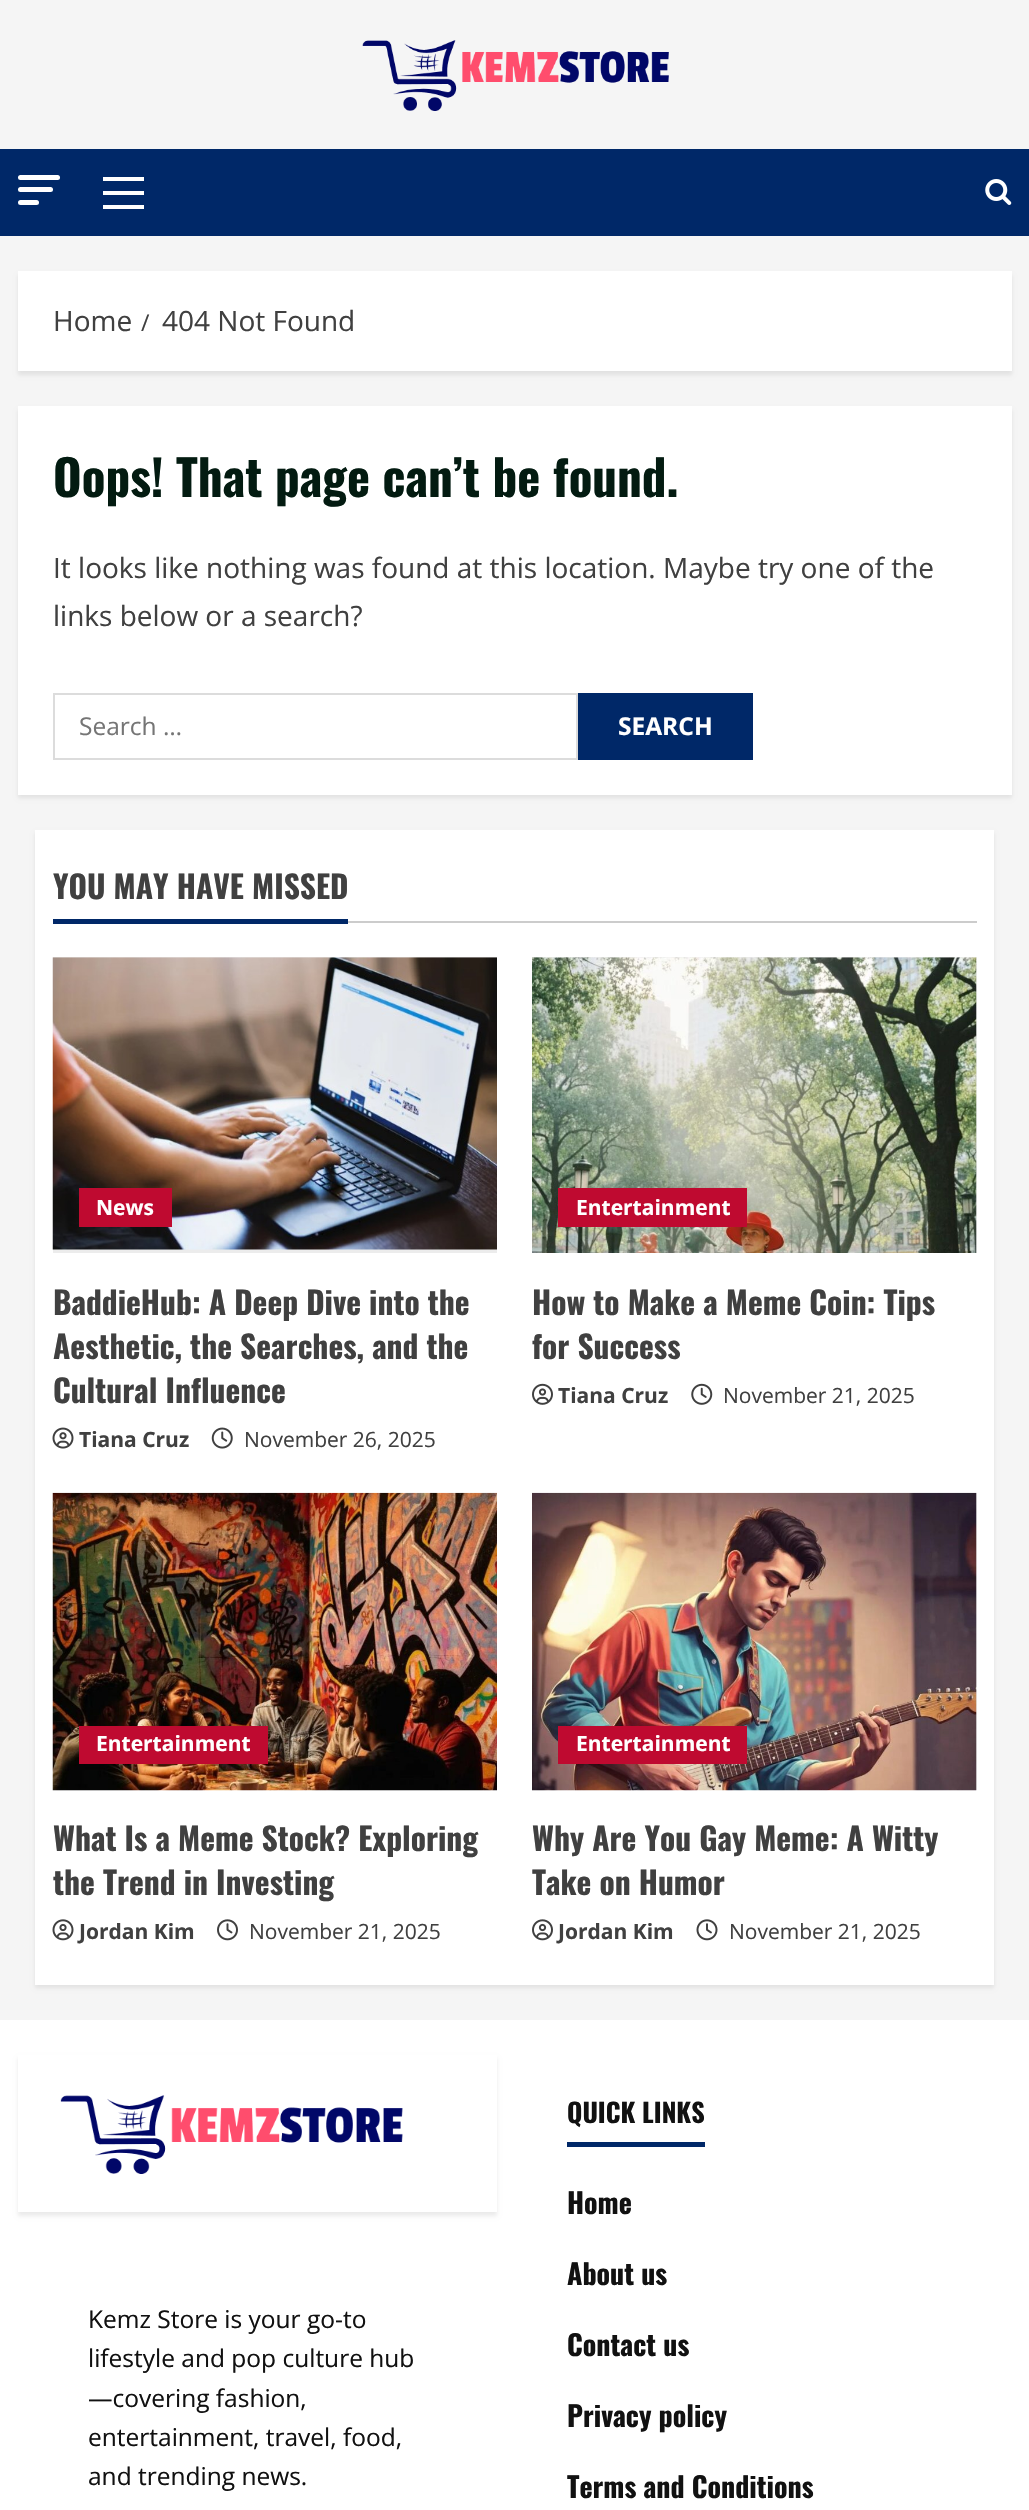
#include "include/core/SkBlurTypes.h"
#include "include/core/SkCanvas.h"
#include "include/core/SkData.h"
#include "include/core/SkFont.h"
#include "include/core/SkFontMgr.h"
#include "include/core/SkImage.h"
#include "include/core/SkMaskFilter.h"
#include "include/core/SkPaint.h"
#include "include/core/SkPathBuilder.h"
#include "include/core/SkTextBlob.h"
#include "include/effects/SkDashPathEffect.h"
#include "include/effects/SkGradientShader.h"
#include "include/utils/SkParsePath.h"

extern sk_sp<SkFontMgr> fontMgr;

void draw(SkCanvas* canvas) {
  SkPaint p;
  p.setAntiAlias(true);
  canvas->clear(SkColorSetRGB(245, 245, 245));
  canvas->drawImageRect(SkImages::DeferredFromEncodedData(SkData::MakeFromFileName("images/1.png")), SkRect::MakeLTRB(362, 40, 669, 111), SkSamplingOptions());
  p.setColor(SkColorSetRGB(0, 40, 104));
  canvas->drawRect(SkRect::MakeLTRB(0, 149, 1029, 236), p);
  p.setColor(SK_ColorWHITE);
  canvas->drawRoundRect(SkRect::MakeLTRB(18, 175, 60, 180), 2.5f, 2.5f, p);
  canvas->drawRoundRect(SkRect::MakeLTRB(18, 187, 53, 192), 2.5f, 2.5f, p);
  canvas->drawRoundRect(SkRect::MakeLTRB(18, 200, 39, 205), 2.5f, 2.5f, p);
  canvas->drawRect(SkRect::MakeLTRB(103, 191, 144, 195), p);
  canvas->drawRect(SkRect::MakeLTRB(103, 177, 144, 181), p);
  canvas->drawRect(SkRect::MakeLTRB(103, 205, 144, 209), p);
  canvas->drawImageRect(SkImages::DeferredFromEncodedData(SkData::MakeFromFileName("images/2.png")), SkRect::MakeLTRB(985, 179, 1012, 205), SkSamplingOptions());
  p.setColor(SkColorSetARGB(20, 0, 0, 0));
  p.setMaskFilter(SkMaskFilter::MakeBlur(kNormal_SkBlurStyle, 2));
  canvas->drawRect(SkRect::MakeLTRB(18, 275, 1012, 375), p);
  p.setMaskFilter(nullptr);
  p.setColor(SK_ColorWHITE);
  canvas->drawRect(SkRect::MakeLTRB(18, 271, 1012, 371), p);
  p.setColor(SkColorSetARGB(20, 0, 0, 0));
  p.setMaskFilter(SkMaskFilter::MakeBlur(kNormal_SkBlurStyle, 2));
  canvas->drawRect(SkRect::MakeLTRB(18, 410, 1012, 798), p);
  p.setMaskFilter(nullptr);
  p.setColor(SK_ColorWHITE);
  canvas->drawRect(SkRect::MakeLTRB(18, 406, 1012, 795), p);
  p.setStyle(SkPaint::kStroke_Style);
  p.setStrokeWidth(2);
  p.setColor(SkColorSetRGB(220, 220, 220));
  canvas->drawRect(SkRect::MakeLTRB(54, 694, 577, 759), p);
  p.setStyle(SkPaint::kFill_Style);
  p.setColor(SkColorSetRGB(0, 40, 104));
  canvas->drawRect(SkRect::MakeLTRB(578, 693, 753, 760), p);
  p.setColor(SkColorSetARGB(20, 0, 0, 0));
  p.setMaskFilter(SkMaskFilter::MakeBlur(kNormal_SkBlurStyle, 2));
  canvas->drawRect(SkRect::MakeLTRB(35, 833, 994, 1988), p);
  p.setMaskFilter(nullptr);
  p.setColor(SK_ColorWHITE);
  canvas->drawRect(SkRect::MakeLTRB(35, 830, 994, 1985), p);
  p.setColor(SkColorSetRGB(204, 204, 204));
  canvas->drawRect(SkRect::MakeLTRB(348, 921, 977, 923), p);
  p.setColor(SkColorSetRGB(0, 40, 104));
  canvas->drawRect(SkRect::MakeLTRB(53, 919, 348, 924), p);
  p.setColor(SkColorSetRGB(236, 236, 236));
  canvas->drawRect(SkRect::MakeLTRB(53, 957, 497, 1253), p);
  canvas->drawImageRect(SkImages::DeferredFromEncodedData(SkData::MakeFromFileName("images/3.png")), SkRect::MakeLTRB(52, 957, 497, 1250), SkSamplingOptions());
  p.setColor(SkColorSetRGB(191, 10, 48));
  canvas->drawRect(SkRect::MakeLTRB(79, 1188, 172, 1227), p);
  canvas->drawImageRect(SkImages::DeferredFromEncodedData(SkData::MakeFromFileName("images/4.png")), SkRect::MakeLTRB(52, 1427, 74, 1449), SkSamplingOptions());
  canvas->drawImageRect(SkImages::DeferredFromEncodedData(SkData::MakeFromFileName("images/5.png")), SkRect::MakeLTRB(211, 1427, 233, 1449), SkSamplingOptions());
  p.setColor(SkColorSetRGB(236, 236, 236));
  canvas->drawRect(SkRect::MakeLTRB(532, 957, 977, 1253), p);
  canvas->drawImageRect(SkImages::DeferredFromEncodedData(SkData::MakeFromFileName("images/6.png")), SkRect::MakeLTRB(532, 957, 977, 1253), SkSamplingOptions());
  p.setColor(SkColorSetRGB(191, 10, 48));
  canvas->drawRect(SkRect::MakeLTRB(558, 1188, 747, 1227), p);
  canvas->drawImageRect(SkImages::DeferredFromEncodedData(SkData::MakeFromFileName("images/7.png")), SkRect::MakeLTRB(532, 1383, 553, 1405), SkSamplingOptions());
  canvas->drawImageRect(SkImages::DeferredFromEncodedData(SkData::MakeFromFileName("images/8.png")), SkRect::MakeLTRB(691, 1383, 713, 1405), SkSamplingOptions());
  canvas->drawImageRect(SkImages::DeferredFromEncodedData(SkData::MakeFromFileName("images/9.png")), SkRect::MakeLTRB(52, 1492, 497, 1791), SkSamplingOptions());
  canvas->drawRect(SkRect::MakeLTRB(79, 1726, 268, 1764), p);
  canvas->drawImageRect(SkImages::DeferredFromEncodedData(SkData::MakeFromFileName("images/10.png")), SkRect::MakeLTRB(52, 1919, 74, 1941), SkSamplingOptions());
  canvas->drawImageRect(SkImages::DeferredFromEncodedData(SkData::MakeFromFileName("images/11.png")), SkRect::MakeLTRB(217, 1919, 238, 1941), SkSamplingOptions());
  p.setColor(SkColorSetRGB(236, 236, 236));
  canvas->drawRect(SkRect::MakeLTRB(976, 1493, 977, 1790), p);
  canvas->drawImageRect(SkImages::DeferredFromEncodedData(SkData::MakeFromFileName("images/12.png")), SkRect::MakeLTRB(532, 1492, 977, 1791), SkSamplingOptions());
  p.setColor(SkColorSetRGB(191, 10, 48));
  canvas->drawRect(SkRect::MakeLTRB(558, 1726, 747, 1764), p);
  canvas->drawImageRect(SkImages::DeferredFromEncodedData(SkData::MakeFromFileName("images/13.png")), SkRect::MakeLTRB(532, 1919, 553, 1941), SkSamplingOptions());
  canvas->drawImageRect(SkImages::DeferredFromEncodedData(SkData::MakeFromFileName("images/14.png")), SkRect::MakeLTRB(696, 1919, 718, 1941), SkSamplingOptions());
  p.setColor(SK_ColorWHITE);
  canvas->drawRect(SkRect::MakeLTRB(0, 2020, 1029, 2510), p);
  canvas->save();
  canvas->clipPath(SkPathBuilder(SkPathFillType::kEvenOdd).moveTo(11, 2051).lineTo(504, 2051).lineTo(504, 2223).lineTo(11, 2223).close().moveTo(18, 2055).lineTo(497, 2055).lineTo(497, 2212).lineTo(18, 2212).close().detach(), true);
  p.setColor(SkColorSetARGB(20, 0, 0, 0));
  p.setMaskFilter(SkMaskFilter::MakeBlur(kNormal_SkBlurStyle, 2));
  canvas->drawRect(SkRect::MakeLTRB(18, 2058, 497, 2216), p);
  p.setMaskFilter(nullptr);
  canvas->restore();
  canvas->drawImageRect(SkImages::DeferredFromEncodedData(SkData::MakeFromFileName("images/15.png")), SkRect::MakeLTRB(60, 2095, 403, 2174), SkSamplingOptions());
  p.setColor(SkColorSetRGB(0, 40, 104));
  canvas->drawRect(SkRect::MakeLTRB(567, 2142, 705, 2147), p);
  SkFont font1(fontMgr->matchFamilyStyle("Open Sans", SkFontStyle::Normal()), 28);
  font1.setSubpixel(true);
  p.setColor(SkColorSetRGB(64, 64, 64));
  canvas->drawString("Home", 53, 331, font1, p);
  SkFont font2(fontMgr->matchFamilyStyle("Open Sans", SkFontStyle::Normal()), 23);
  font2.setSubpixel(true);
  canvas->drawString("/", 141, 331, font2, p);
  canvas->drawString("404 Not Found", 162, 331, font1, p);
  SkFont font3(fontMgr->matchFamilyStyle("Oswald", SkFontStyle::Bold()), 49);
  font3.setSubpixel(true);
  p.setColor(SkColorSetRGB(3, 27, 17));
  canvas->drawString("Oops! That page can’t be found.", 53, 497, font3, p);
  p.setColor(SkColorSetRGB(64, 64, 64));
  canvas->drawString("It looks like nothing was found at this location. Maybe try one of the", 53, 578, font1, p);
  canvas->drawString("links below or a search?", 53, 626, font1, p);
  SkFont font4(fontMgr->matchFamilyStyle("Open Sans", SkFontStyle::Normal()), 24.5f);
  font4.setSubpixel(true);
  p.setColor(SkColorSetRGB(117, 117, 117));
  canvas->drawString("Search …", 79, 735, font4, p);
  SkFont font5(fontMgr->matchFamilyStyle("Open Sans", SkFontStyle::Bold()), 24.5f);
  font5.setSubpixel(true);
  p.setColor(SK_ColorWHITE);
  canvas->drawString("SEARCH", 618, 735, font5, p);
  SkFont font6(fontMgr->matchFamilyStyle("Oswald", SkFontStyle::Bold()), 31.5f);
  font6.setSubpixel(true);
  p.setColor(SkColorSetRGB(64, 64, 64));
  canvas->drawString("YOU MAY HAVE MISSED", 53, 899, font6, p);
  SkFont font7(fontMgr->matchFamilyStyle("Open Sans", SkFontStyle::Bold()), 21);
  font7.setSubpixel(true);
  p.setColor(SK_ColorWHITE);
  canvas->drawString("News", 96, 1215, font7, p);
  p.setColor(SkColorSetRGB(64, 64, 64));
  canvas->drawString("BaddieHub: A Deep Dive into the", 53, 1315, font6, p);
  canvas->drawString("Aesthetic, the Searches, and the", 53, 1359, font6, p);
  canvas->drawString("Cultural Influence", 53, 1403, font6, p);
  canvas->drawString("Tiana Cruz", 79, 1447, font7, p);
  SkFont font8(fontMgr->matchFamilyStyle("Open Sans", SkFontStyle::Normal()), 21);
  font8.setSubpixel(true);
  canvas->drawString("November 26, 2025", 244, 1447, font8, p);
  p.setColor(SK_ColorWHITE);
  canvas->drawString("Entertainment", 576, 1215, font7, p);
  p.setColor(SkColorSetRGB(64, 64, 64));
  canvas->drawString("How to Make a Meme Coin: Tips", 532, 1315, font6, p);
  canvas->drawString("for Success", 532, 1359, font6, p);
  canvas->drawString("Tiana Cruz", 558, 1403, font7, p);
  canvas->drawString("November 21, 2025", 723, 1403, font8, p);
  p.setColor(SK_ColorWHITE);
  canvas->drawString("Entertainment", 96, 1751, font7, p);
  p.setColor(SkColorSetRGB(64, 64, 64));
  canvas->drawString("What Is a Meme Stock? Exploring", 53, 1851, font6, p);
  canvas->drawString("the Trend in Investing", 53, 1895, font6, p);
  canvas->drawString("Jordan Kim", 79, 1939, font7, p);
  canvas->drawString("November 21, 2025", 249, 1939, font8, p);
  p.setColor(SK_ColorWHITE);
  canvas->drawString("Entertainment", 576, 1751, font7, p);
  p.setColor(SkColorSetRGB(64, 64, 64));
  canvas->drawString("Why Are You Gay Meme: A Witty", 532, 1851, font6, p);
  canvas->drawString("Take on Humor", 532, 1895, font6, p);
  canvas->drawString("Jordan Kim", 558, 1939, font7, p);
  canvas->drawString("November 21, 2025", 729, 1939, font8, p);
  p.setColor(SkColorSetRGB(17, 17, 17));
  canvas->drawString("Kemz Store is your go-to", 88, 2328, font4, p);
  canvas->drawString("lifestyle and pop culture hub", 88, 2367, font4, p);
  canvas->drawString("—covering fashion,", 88, 2407, font4, p);
  canvas->drawString("entertainment, travel, food,", 88, 2446, font4, p);
  canvas->drawString("and trending news.", 88, 2485, font4, p);
  SkFont font9(fontMgr->matchFamilyStyle("Oswald", SkFontStyle::Bold()), 26.25f);
  font9.setSubpixel(true);
  canvas->drawString("QUICK LINKS", 567, 2123, font9, p);
  SkFont font10(fontMgr->matchFamilyStyle("Oswald", SkFontStyle::Bold()), 28);
  font10.setSubpixel(true);
  canvas->drawString("Home", 567, 2214, font10, p);
  canvas->drawString("About us", 567, 2285, font10, p);
  canvas->drawString("Contact us", 567, 2356, font10, p);
  canvas->drawString("Privacy policy", 567, 2427, font10, p);
  canvas->drawString("Terms and Conditions", 567, 2498, font10, p);
}
